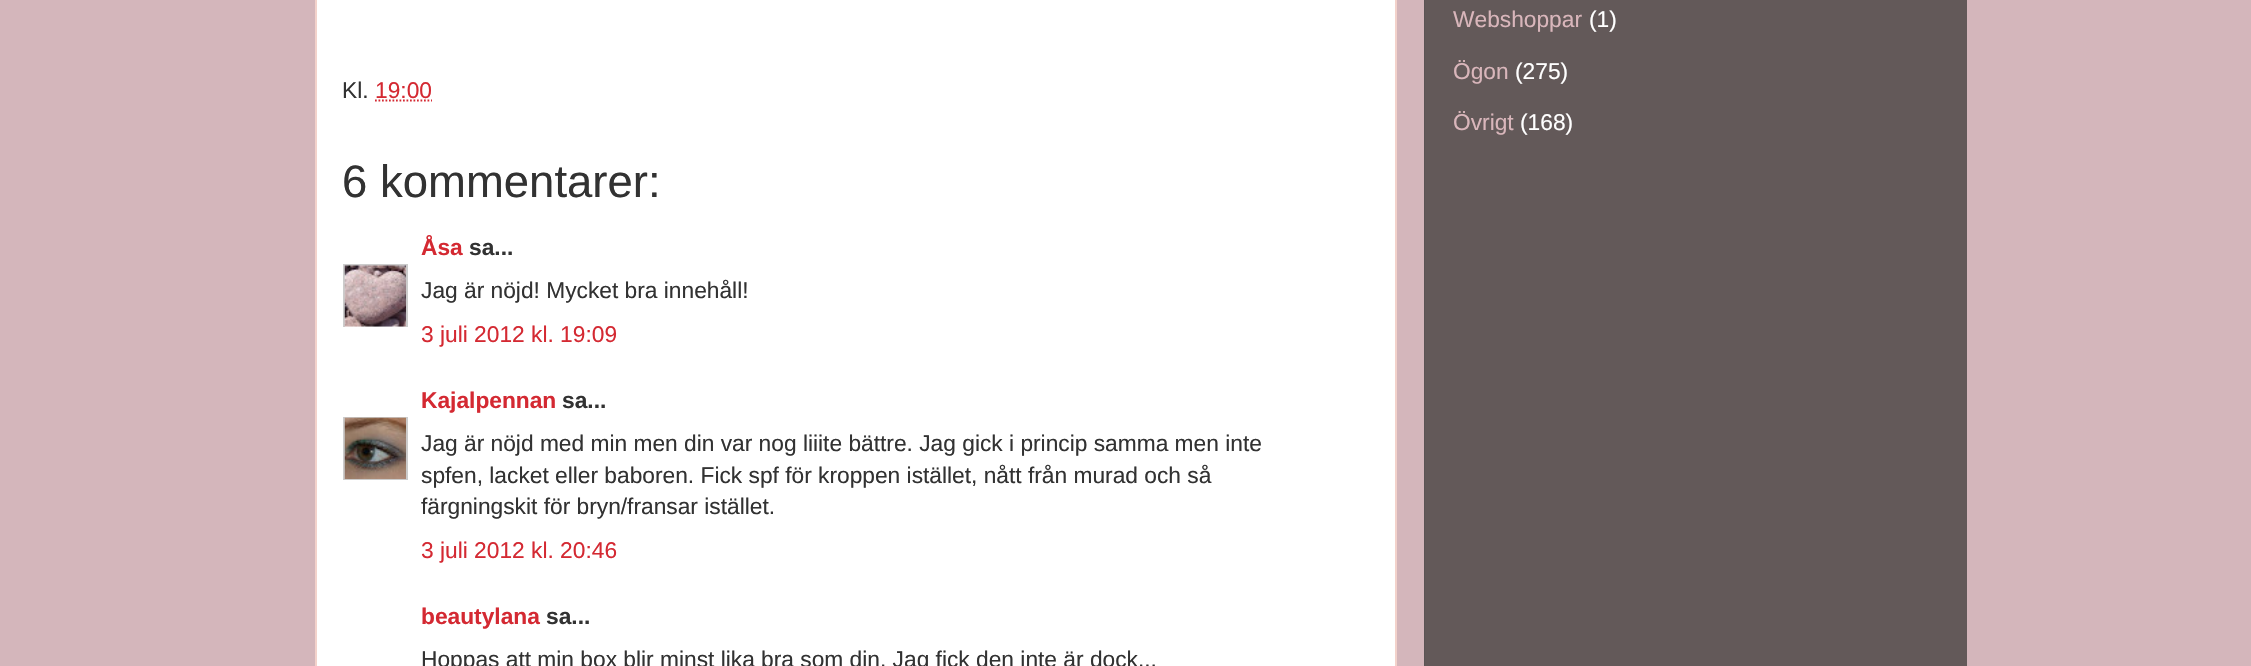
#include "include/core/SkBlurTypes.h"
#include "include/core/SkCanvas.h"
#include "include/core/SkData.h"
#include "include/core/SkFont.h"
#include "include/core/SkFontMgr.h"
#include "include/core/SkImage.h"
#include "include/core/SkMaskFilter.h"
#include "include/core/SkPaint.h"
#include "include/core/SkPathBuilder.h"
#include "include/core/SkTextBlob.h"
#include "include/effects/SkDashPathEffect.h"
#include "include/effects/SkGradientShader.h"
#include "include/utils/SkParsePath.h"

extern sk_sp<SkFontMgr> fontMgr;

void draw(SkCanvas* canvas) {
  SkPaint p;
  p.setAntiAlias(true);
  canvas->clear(SkColorSetRGB(212, 182, 187));
  p.setColor(SkColorSetRGB(91, 84, 85));
  canvas->drawRect(SkRect::MakeLTRB(1424, 0, 1425, 666), p);
  p.setColor(SK_ColorWHITE);
  canvas->drawRect(SkRect::MakeLTRB(316, -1, 1396, 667), p);
  p.setStyle(SkPaint::kStroke_Style);
  p.setStrokeWidth(2);
  p.setColor(SkColorSetRGB(243, 210, 203));
  canvas->drawRect(SkRect::MakeLTRB(316, -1, 1396, 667), p);
  p.setStrokeWidth(1.8f);
  p.setColor(SkColorSetRGB(212, 41, 50));
  p.setPathEffect(SkDashPathEffect::Make({{1.75f, 1.75f}}, 0));
  canvas->drawPath(SkPathBuilder().moveTo(375, 100.5f).lineTo(432, 100.5f).detach(), p);
  p.setPathEffect(nullptr);
  canvas->save();
  canvas->clipRect(SkRect::MakeLTRB(343, 264, 408, 327));
  p.setStrokeWidth(2);
  p.setColor(SkColorSetRGB(204, 204, 204));
  canvas->drawRect(SkRect::MakeLTRB(344, 265, 407, 328), p);
  canvas->restore();
  canvas->drawImageRect(SkImages::DeferredFromEncodedData(SkData::MakeFromFileName("images/1.png")), SkRect::MakeLTRB(344, 265, 406, 327), SkSamplingOptions());
  canvas->save();
  canvas->clipRect(SkRect::MakeLTRB(343, 417, 408, 480));
  canvas->drawRect(SkRect::MakeLTRB(344, 418, 407, 480), p);
  canvas->restore();
  canvas->drawImageRect(SkImages::DeferredFromEncodedData(SkData::MakeFromFileName("images/2.png")), SkRect::MakeLTRB(344, 417, 406, 479), SkSamplingOptions());
  p.setStyle(SkPaint::kFill_Style);
  p.setColor(SkColorSetRGB(99, 89, 89));
  canvas->drawRect(SkRect::MakeLTRB(1425, 0, 1967, 666), p);
  SkFont font1(fontMgr->matchFamilyStyle("Liberation Sans", SkFontStyle::Normal()), 22.75f);
  font1.setSubpixel(true);
  p.setColor(SkColorSetRGB(50, 50, 50));
  canvas->drawString("Kl.", 342, 98, font1, p);
  p.setColor(SkColorSetRGB(212, 41, 50));
  canvas->drawString("19:00", 375, 98, font1, p);
  SkFont font2(fontMgr->matchFamilyStyle("Liberation Sans", SkFontStyle::Normal()), 45.5f);
  font2.setSubpixel(true);
  p.setColor(SkColorSetRGB(50, 50, 50));
  canvas->drawString("6 kommentarer:", 342, 197, font2, p);
  SkFont font3(fontMgr->matchFamilyStyle("Liberation Sans", SkFontStyle::Bold()), 22.75f);
  font3.setSubpixel(true);
  p.setColor(SkColorSetRGB(212, 41, 50));
  canvas->drawString("Åsa", 421, 255, font3, p);
  p.setColor(SkColorSetRGB(50, 50, 50));
  canvas->drawString("sa...", 469, 255, font3, p);
  canvas->drawString("Jag är nöjd! Mycket bra innehåll!", 421, 298, font1, p);
  p.setColor(SkColorSetRGB(212, 41, 50));
  canvas->drawString("3 juli 2012 kl. 19:09", 421, 342, font1, p);
  canvas->drawString("Kajalpennan", 421, 408, font3, p);
  p.setColor(SkColorSetRGB(50, 50, 50));
  canvas->drawString("sa...", 562, 408, font3, p);
  canvas->drawString("Jag är nöjd med min men din var nog liiite bättre. Jag gick i princip samma men inte", 421, 451, font1, p);
  canvas->drawString("spfen, lacket eller baboren. Fick spf för kroppen istället, nått från murad och så", 421, 483, font1, p);
  canvas->drawString("färgningskit för bryn/fransar istället.", 421, 514, font1, p);
  p.setColor(SkColorSetRGB(212, 41, 50));
  canvas->drawString("3 juli 2012 kl. 20:46", 421, 558, font1, p);
  canvas->drawString("beautylana", 421, 624, font3, p);
  p.setColor(SkColorSetRGB(50, 50, 50));
  canvas->drawString("sa...", 546, 624, font3, p);
  canvas->drawString("Hoppas att min box blir minst lika bra som din. Jag fick den inte är dock...", 421, 667, font1, p);
  p.setColor(SkColorSetRGB(217, 182, 187));
  canvas->drawString("Webshoppar", 1453, 27, font1, p);
  p.setColor(SK_ColorWHITE);
  canvas->drawString("(1)", 1589, 27, font1, p);
  p.setColor(SkColorSetRGB(217, 182, 187));
  canvas->drawString("Ögon", 1453, 79, font1, p);
  p.setColor(SK_ColorWHITE);
  canvas->drawString("(275)", 1515, 79, font1, p);
  p.setColor(SkColorSetRGB(217, 182, 187));
  canvas->drawString("Övrigt", 1453, 130, font1, p);
  p.setColor(SK_ColorWHITE);
  canvas->drawString("(168)", 1520, 130, font1, p);
}
